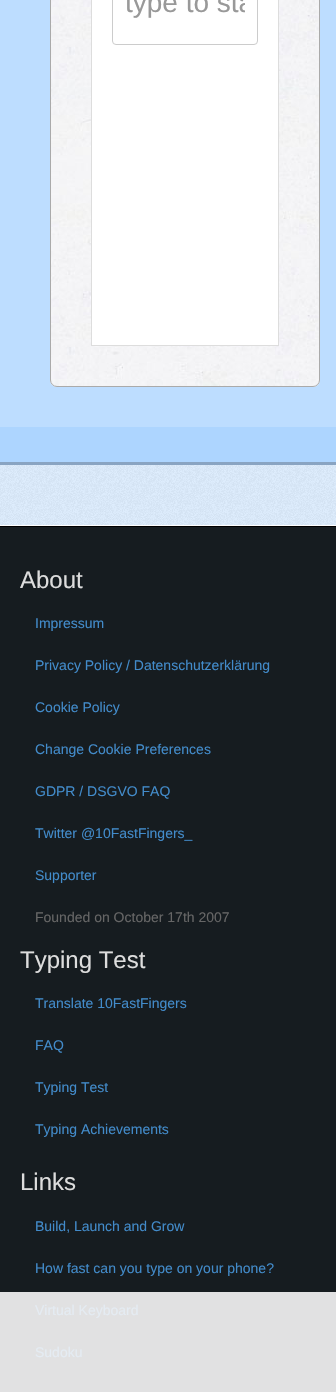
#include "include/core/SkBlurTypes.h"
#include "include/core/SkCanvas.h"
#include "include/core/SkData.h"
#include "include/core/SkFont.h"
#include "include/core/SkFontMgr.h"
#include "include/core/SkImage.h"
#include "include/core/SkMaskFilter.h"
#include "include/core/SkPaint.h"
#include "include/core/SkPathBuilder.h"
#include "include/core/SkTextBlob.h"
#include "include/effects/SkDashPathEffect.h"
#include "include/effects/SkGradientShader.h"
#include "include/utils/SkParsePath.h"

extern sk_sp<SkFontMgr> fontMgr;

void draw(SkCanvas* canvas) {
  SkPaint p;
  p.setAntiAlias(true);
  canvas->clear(SkColorSetRGB(173, 213, 255));
  p.setColor(SkColorSetRGB(189, 221, 255));
  canvas->drawRect(SkRect::MakeLTRB(0, 0, 336, 427), p);
  canvas->drawImageRect(SkImages::DeferredFromEncodedData(SkData::MakeFromFileName("images/1.png")), SkRect::MakeLTRB(50, 0, 320, 387), SkSamplingOptions());
  p.setStyle(SkPaint::kStroke_Style);
  p.setStrokeWidth(1);
  p.setColor(SkColorSetRGB(170, 170, 170));
  canvas->drawRoundRect(SkRect::MakeLTRB(50.5f, -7.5f, 319.5f, 386.5f), 6.5f, 6.5f, p);
  p.setStyle(SkPaint::kFill_Style);
  p.setColor(SK_ColorWHITE);
  canvas->drawRect(SkRect::MakeLTRB(92, 0, 278, 345), p);
  p.setColor(SkColorSetRGB(221, 221, 221));
  canvas->drawRect(SkRect::MakeLTRB(278, 0, 279, 346), p);
  canvas->drawRect(SkRect::MakeLTRB(91, 345, 279, 346), p);
  canvas->drawRect(SkRect::MakeLTRB(91, 0, 92, 346), p);
  p.setStyle(SkPaint::kStroke_Style);
  p.setColor(SkColorSetRGB(204, 204, 204));
  canvas->drawRoundRect(SkRect::MakeLTRB(112.5f, -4.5f, 257.5f, 44.5f), 3.5f, 3.5f, p);
  p.setStyle(SkPaint::kFill_Style);
  p.setColor(SkColorSetRGB(137, 164, 194));
  canvas->drawRect(SkRect::MakeLTRB(0, 462, 336, 465), p);
  canvas->drawImageRect(SkImages::DeferredFromEncodedData(SkData::MakeFromFileName("images/2.png")), SkRect::MakeLTRB(0, 465, 336, 525), SkSamplingOptions());
  p.setColor(SK_ColorWHITE);
  canvas->drawRect(SkRect::MakeLTRB(0, 525, 336, 526), p);
  p.setColor(SkColorSetRGB(22, 28, 32));
  canvas->drawRect(SkRect::MakeLTRB(0, 527, 336, 1292), p);
  p.setColor(SkColorSetRGB(225, 225, 226));
  canvas->drawRect(SkRect::MakeLTRB(0, 1292, 336, 1392), p);
  p.setColor(SK_ColorBLACK);
  canvas->drawRect(SkRect::MakeLTRB(0, 526, 336, 527), p);
  canvas->save();
  canvas->clipRect(SkRect::MakeLTRB(125, 0, 245, 19));
  SkFont font1(fontMgr->matchFamilyStyle("Liberation Sans", SkFontStyle::Normal()), 28);
  font1.setSubpixel(true);
  p.setColor(SkColorSetRGB(153, 153, 153));
  canvas->drawString("type to sta", 125, 12, font1, p);
  canvas->restore();
  SkFont font2(fontMgr->matchFamilyStyle("Liberation Sans", SkFontStyle::Normal()), 24);
  font2.setSubpixel(true);
  p.setColor(SkColorSetRGB(221, 221, 221));
  canvas->drawString("About", 20, 588, font2, p);
  SkFont font3(fontMgr->matchFamilyStyle("Liberation Sans", SkFontStyle::Normal()), 14);
  font3.setSubpixel(true);
  p.setColor(SkColorSetRGB(66, 139, 202));
  canvas->drawString("Impressum", 35, 628, font3, p);
  canvas->drawString("Privacy Policy / Datenschutzerklärung", 35, 670, font3, p);
  canvas->drawString("Cookie Policy", 35, 712, font3, p);
  canvas->drawString("Change Cookie Preferences", 35, 754, font3, p);
  canvas->drawString("GDPR / DSGVO FAQ", 35, 796, font3, p);
  canvas->drawString("Twitter @10FastFingers_", 35, 838, font3, p);
  canvas->drawString("Supporter", 35, 880, font3, p);
  p.setColor(SkColorSetRGB(102, 102, 102));
  canvas->drawString("Founded on October 17th 2007", 35, 922, font3, p);
  p.setColor(SkColorSetRGB(221, 221, 221));
  canvas->drawString("Typing Test", 20, 968, font2, p);
  p.setColor(SkColorSetRGB(66, 139, 202));
  canvas->drawString("Translate 10FastFingers", 35, 1008, font3, p);
  canvas->drawString("FAQ", 35, 1050, font3, p);
  canvas->drawString("Typing Test", 35, 1092, font3, p);
  canvas->drawString("Typing Achievements", 35, 1134, font3, p);
  p.setColor(SkColorSetRGB(221, 221, 221));
  canvas->drawString("Links", 20, 1190, font2, p);
  p.setColor(SkColorSetRGB(66, 139, 202));
  canvas->drawString("Build, Launch and Grow", 35, 1231, font3, p);
  canvas->drawString("How fast can you type on your phone?", 35, 1273, font3, p);
  p.setColor(SkColorSetRGB(229, 236, 243));
  canvas->drawString("Virtual Keyboard", 35, 1315, font3, p);
  canvas->drawString("Sudoku", 35, 1357, font3, p);
}
